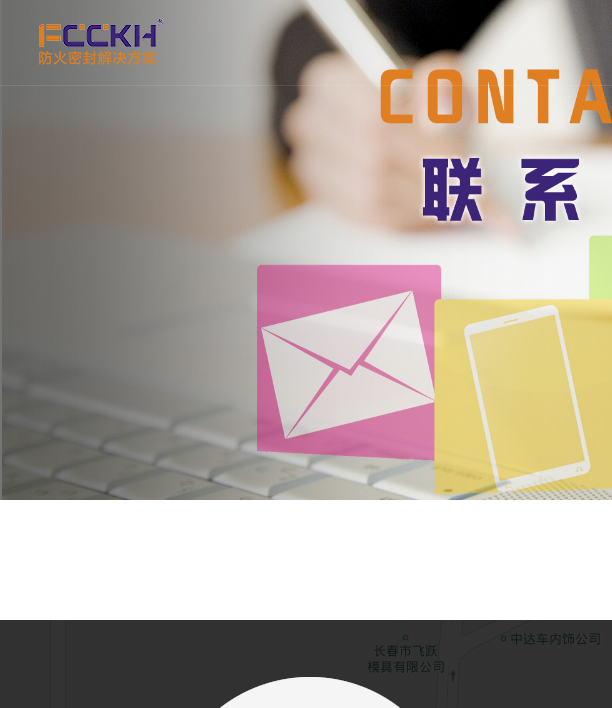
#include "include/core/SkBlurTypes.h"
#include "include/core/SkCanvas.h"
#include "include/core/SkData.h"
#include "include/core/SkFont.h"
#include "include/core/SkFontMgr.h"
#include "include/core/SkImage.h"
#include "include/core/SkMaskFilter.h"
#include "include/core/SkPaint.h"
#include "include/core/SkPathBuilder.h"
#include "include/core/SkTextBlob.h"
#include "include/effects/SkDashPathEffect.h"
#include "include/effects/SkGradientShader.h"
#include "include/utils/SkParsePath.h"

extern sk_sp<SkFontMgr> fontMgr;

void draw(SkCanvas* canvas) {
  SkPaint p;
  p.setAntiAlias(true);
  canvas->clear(SK_ColorWHITE);
  canvas->drawImageRect(SkImages::DeferredFromEncodedData(SkData::MakeFromFileName("images/1.png")), SkRect::MakeLTRB(0, 0, 612, 500), SkSamplingOptions());
  p.setColor(SkColorSetARGB(26, 255, 255, 255));
  canvas->drawRect(SkRect::MakeLTRB(0, 85, 612, 86), p);
  canvas->drawImageRect(SkImages::DeferredFromEncodedData(SkData::MakeFromFileName("images/2.png")), SkRect::MakeLTRB(39, 18, 164, 65), SkSamplingOptions());
  canvas->drawImageRect(SkImages::DeferredFromEncodedData(SkData::MakeFromFileName("images/3.png")), SkRect::MakeLTRB(0, 620, 612, 708), SkSamplingOptions());
  canvas->drawImageRect(SkImages::DeferredFromEncodedData(SkData::MakeFromFileName("images/4.png")), SkRect::MakeLTRB(0, 620, 612, 708), SkSamplingOptions());
}
